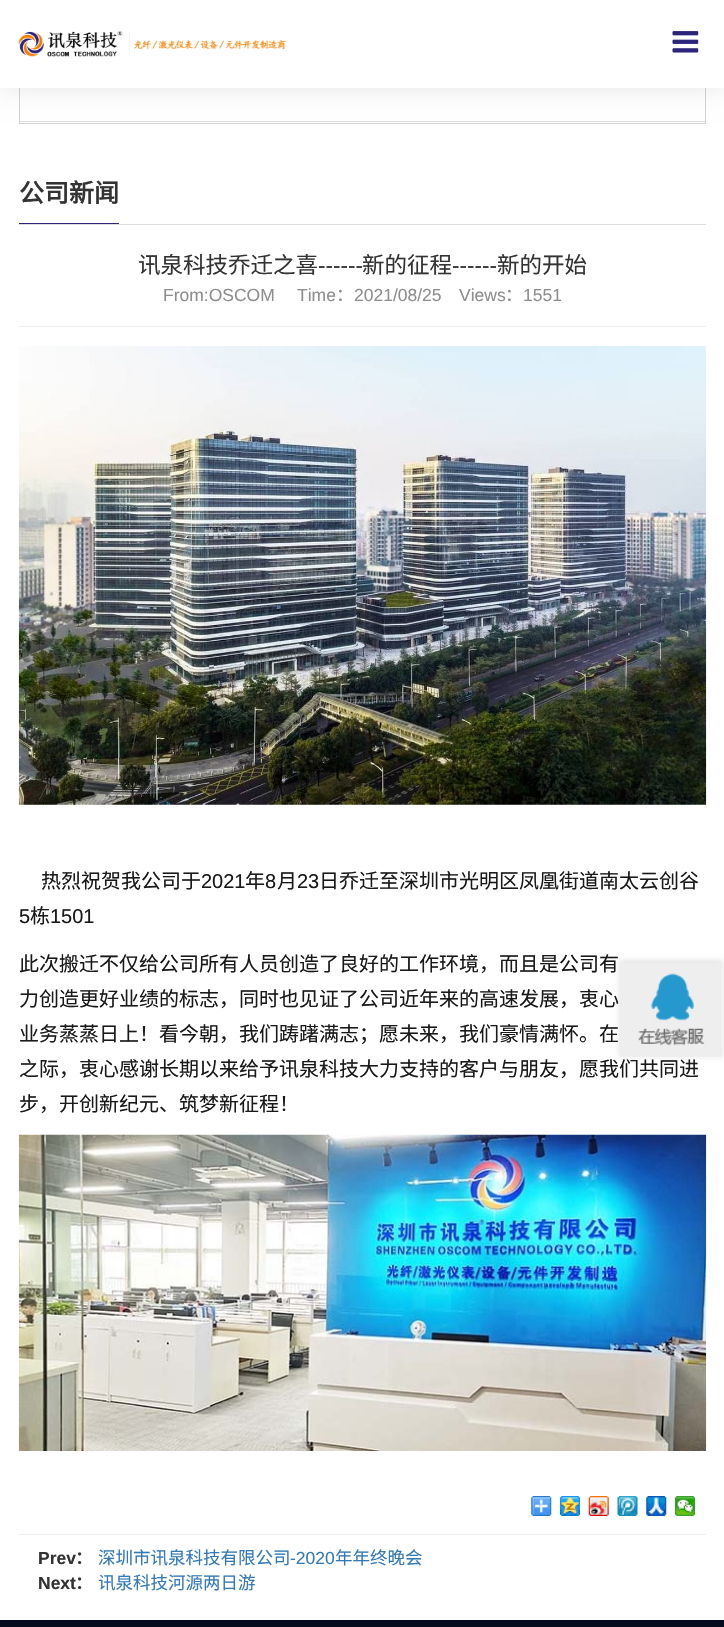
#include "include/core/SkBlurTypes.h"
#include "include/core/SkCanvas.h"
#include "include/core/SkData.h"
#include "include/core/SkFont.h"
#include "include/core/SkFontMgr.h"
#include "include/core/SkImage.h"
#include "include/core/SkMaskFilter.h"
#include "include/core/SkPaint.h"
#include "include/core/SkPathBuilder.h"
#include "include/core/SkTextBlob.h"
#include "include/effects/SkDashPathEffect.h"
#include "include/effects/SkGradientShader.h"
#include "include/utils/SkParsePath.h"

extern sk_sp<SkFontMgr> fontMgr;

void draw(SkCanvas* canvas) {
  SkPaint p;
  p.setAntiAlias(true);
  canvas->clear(SK_ColorWHITE);
  p.setStyle(SkPaint::kStroke_Style);
  p.setStrokeWidth(1);
  p.setColor(SkColorSetRGB(211, 211, 211));
  canvas->drawRect(SkRect::MakeLTRB(19.5f, -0.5f, 705.5f, 123.5f), p);
  p.setStyle(SkPaint::kFill_Style);
  p.setColor(SkColorSetRGB(221, 221, 221));
  canvas->drawRect(SkRect::MakeLTRB(20, 121, 705, 122), p);
  p.setColor(SkColorSetARGB(26, 0, 0, 0));
  p.setMaskFilter(SkMaskFilter::MakeBlur(kNormal_SkBlurStyle, 12.5f));
  canvas->drawRect(SkRect::MakeLTRB(0, 0, 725, 88), p);
  p.setMaskFilter(nullptr);
  p.setColor(SK_ColorWHITE);
  canvas->drawRect(SkRect::MakeLTRB(0, 0, 724, 88), p);
  canvas->drawImageRect(SkImages::DeferredFromEncodedData(SkData::MakeFromFileName("images/1.png")), SkRect::MakeLTRB(18, 31, 287, 57), SkSamplingOptions());
  canvas->drawImageRect(SkImages::DeferredFromEncodedData(SkData::MakeFromFileName("images/2.png")), SkRect::MakeLTRB(672, 31, 699, 53), SkSamplingOptions());
  p.setColor(SkColorSetRGB(45, 37, 123));
  canvas->drawRect(SkRect::MakeLTRB(19, 223, 119, 224), p);
  p.setColor(SkColorSetRGB(221, 221, 221));
  canvas->drawRect(SkRect::MakeLTRB(19, 224, 706, 225), p);
  p.setColor(SkColorSetRGB(238, 238, 238));
  canvas->drawRect(SkRect::MakeLTRB(19, 326, 706, 327), p);
  canvas->drawRect(SkRect::MakeLTRB(19, 1534, 706, 1535), p);
  canvas->drawImageRect(SkImages::DeferredFromEncodedData(SkData::MakeFromFileName("images/3.png")), SkRect::MakeLTRB(18, 346, 707, 805), SkSamplingOptions());
  canvas->drawImageRect(SkImages::DeferredFromEncodedData(SkData::MakeFromFileName("images/4.png")), SkRect::MakeLTRB(18, 1134, 707, 1451), SkSamplingOptions());
  canvas->drawImageRect(SkImages::DeferredFromEncodedData(SkData::MakeFromFileName("images/5.png")), SkRect::MakeLTRB(531, 1496, 552, 1516), SkSamplingOptions());
  canvas->drawImageRect(SkImages::DeferredFromEncodedData(SkData::MakeFromFileName("images/6.png")), SkRect::MakeLTRB(560, 1496, 580, 1516), SkSamplingOptions());
  canvas->drawImageRect(SkImages::DeferredFromEncodedData(SkData::MakeFromFileName("images/7.png")), SkRect::MakeLTRB(588, 1496, 609, 1516), SkSamplingOptions());
  canvas->drawImageRect(SkImages::DeferredFromEncodedData(SkData::MakeFromFileName("images/8.png")), SkRect::MakeLTRB(617, 1496, 638, 1516), SkSamplingOptions());
  canvas->drawImageRect(SkImages::DeferredFromEncodedData(SkData::MakeFromFileName("images/9.png")), SkRect::MakeLTRB(646, 1496, 667, 1516), SkSamplingOptions());
  canvas->drawImageRect(SkImages::DeferredFromEncodedData(SkData::MakeFromFileName("images/10.png")), SkRect::MakeLTRB(675, 1496, 695, 1516), SkSamplingOptions());
  p.setColor(SkColorSetRGB(221, 221, 221));
  p.setMaskFilter(SkMaskFilter::MakeBlur(kNormal_SkBlurStyle, 3));
  canvas->drawRect(SkRect::MakeLTRB(620, 961, 723, 1056), p);
  p.setMaskFilter(nullptr);
  p.setColor(SK_ColorWHITE);
  canvas->drawRect(SkRect::MakeLTRB(620, 963, 723, 1058), p);
  canvas->drawImageRect(SkImages::DeferredFromEncodedData(SkData::MakeFromFileName("images/11.png")), SkRect::MakeLTRB(620, 962, 723, 1058), SkSamplingOptions());
  p.setColor(SkColorSetRGB(5, 12, 29));
  canvas->drawRect(SkRect::MakeLTRB(0, 1620, 724, 1627), p);
  SkFont font1(fontMgr->matchFamilyStyle("Noto Sans CJK SC", SkFontStyle::Bold()), 25);
  font1.setSubpixel(true);
  p.setColor(SkColorSetRGB(51, 51, 51));
  canvas->drawString("公司新闻", 19, 202, font1, p);
  SkFont font2(fontMgr->matchFamilyStyle("Noto Sans CJK SC", SkFontStyle::Normal()), 22.5f);
  font2.setSubpixel(true);
  canvas->drawString("讯泉科技乔迁之喜", 138, 273, font2, p);
  SkFont font3(fontMgr->matchFamilyStyle("Liberation Sans", SkFontStyle::Normal()), 22.5f);
  font3.setSubpixel(true);
  canvas->drawString("------", 318, 273, font3, p);
  canvas->drawString("新的征程", 362, 273, font2, p);
  canvas->drawString("------", 452, 273, font3, p);
  canvas->drawString("新的开始", 497, 273, font2, p);
  SkFont font4(fontMgr->matchFamilyStyle("Liberation Sans", SkFontStyle::Normal()), 17.5f);
  font4.setSubpixel(true);
  p.setColor(SkColorSetRGB(142, 142, 142));
  canvas->drawString("From:OSCOM", 163, 301, font4, p);
  canvas->drawString("Time", 297, 301, font4, p);
  SkFont font5(fontMgr->matchFamilyStyle("Noto Sans CJK SC", SkFontStyle::Normal()), 17.5f);
  font5.setSubpixel(true);
  canvas->drawString("：", 336, 301, font5, p);
  canvas->drawString("2021/08/25", 354, 301, font4, p);
  canvas->drawString("Views", 459, 301, font4, p);
  canvas->drawString("：", 505, 301, font5, p);
  canvas->drawString("1551", 523, 301, font4, p);
  SkFont font6(fontMgr->matchFamilyStyle("Noto Sans CJK SC", SkFontStyle::Normal()), 20);
  font6.setSubpixel(true);
  p.setColor(SkColorSetRGB(25, 25, 25));
  canvas->drawString("热烈祝贺我公司于", 41, 888, font6, p);
  SkFont font7(fontMgr->matchFamilyStyle("Liberation Sans", SkFontStyle::Normal()), 20);
  font7.setSubpixel(true);
  canvas->drawString("2021", 201, 888, font7, p);
  canvas->drawString("年", 245, 888, font6, p);
  canvas->drawString("8", 265, 888, font7, p);
  canvas->drawString("月", 277, 888, font6, p);
  canvas->drawString("23", 297, 888, font7, p);
  canvas->drawString("日乔迁至深圳市光明区凤凰街道南太云创谷", 319, 888, font6, p);
  canvas->drawString("5", 19, 923, font7, p);
  canvas->drawString("栋", 30, 923, font6, p);
  canvas->drawString("1501", 50, 923, font7, p);
  canvas->drawString("此次搬迁不仅给公司所有人员创造了良好的工作环境，而且是公司有", 19, 971, font6, p);
  canvas->drawString("力创造更好业绩的标志，同时也见证了公司近年来的高速发展，衷心", 19, 1006, font6, p);
  canvas->drawString("业务蒸蒸日上！看今朝，我们踌躇满志；愿未来，我们豪情满怀。在", 19, 1041, font6, p);
  canvas->drawString("之际，衷心感谢长期以来给予讯泉科技大力支持的客户与朋友，愿我们共同进", 19, 1076, font6, p);
  canvas->drawString("步，开创新纪元、筑梦新征程！", 19, 1111, font6, p);
  SkFont font8(fontMgr->matchFamilyStyle("Liberation Sans", SkFontStyle::Bold()), 17.5f);
  font8.setSubpixel(true);
  p.setColor(SkColorSetRGB(51, 51, 51));
  canvas->drawString("Prev", 38, 1564, font8, p);
  SkFont font9(fontMgr->matchFamilyStyle("Noto Sans CJK SC", SkFontStyle::Bold()), 17.5f);
  font9.setSubpixel(true);
  canvas->drawString("：", 75, 1564, font9, p);
  p.setColor(SkColorSetRGB(51, 122, 183));
  canvas->drawString("深圳市讯泉科技有限公司", 98, 1564, font5, p);
  canvas->drawString("-2020", 290, 1564, font4, p);
  canvas->drawString("年年终晚会", 335, 1564, font5, p);
  p.setColor(SkColorSetRGB(51, 51, 51));
  canvas->drawString("Next", 38, 1589, font8, p);
  canvas->drawString("：", 75, 1589, font9, p);
  p.setColor(SkColorSetRGB(51, 122, 183));
  canvas->drawString("讯泉科技河源两日游", 98, 1589, font5, p);
}
